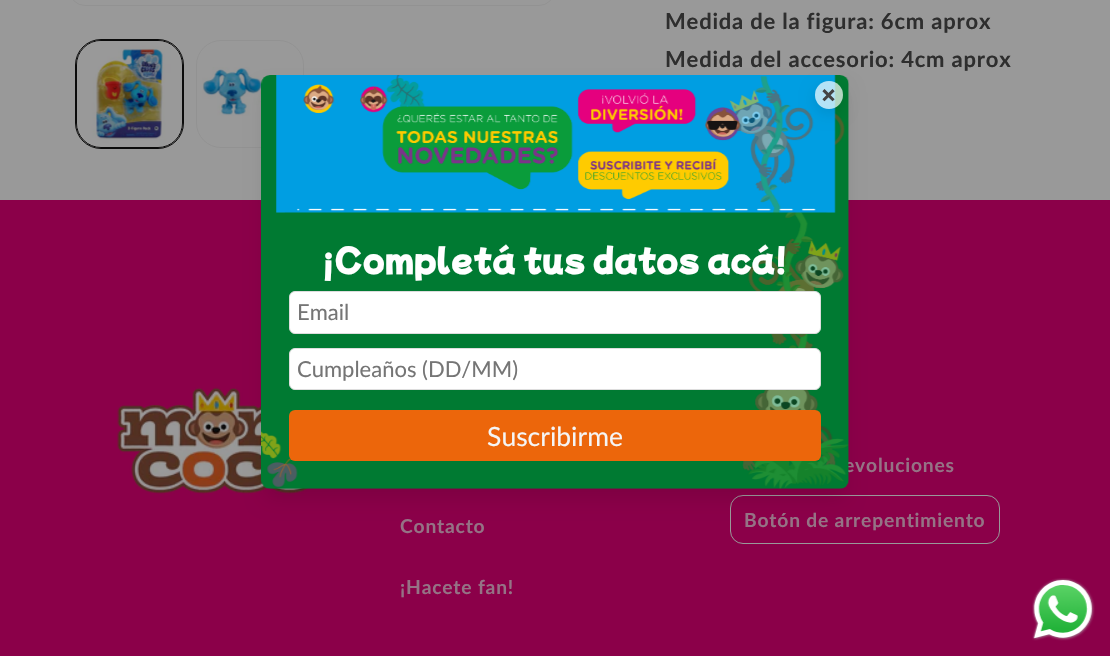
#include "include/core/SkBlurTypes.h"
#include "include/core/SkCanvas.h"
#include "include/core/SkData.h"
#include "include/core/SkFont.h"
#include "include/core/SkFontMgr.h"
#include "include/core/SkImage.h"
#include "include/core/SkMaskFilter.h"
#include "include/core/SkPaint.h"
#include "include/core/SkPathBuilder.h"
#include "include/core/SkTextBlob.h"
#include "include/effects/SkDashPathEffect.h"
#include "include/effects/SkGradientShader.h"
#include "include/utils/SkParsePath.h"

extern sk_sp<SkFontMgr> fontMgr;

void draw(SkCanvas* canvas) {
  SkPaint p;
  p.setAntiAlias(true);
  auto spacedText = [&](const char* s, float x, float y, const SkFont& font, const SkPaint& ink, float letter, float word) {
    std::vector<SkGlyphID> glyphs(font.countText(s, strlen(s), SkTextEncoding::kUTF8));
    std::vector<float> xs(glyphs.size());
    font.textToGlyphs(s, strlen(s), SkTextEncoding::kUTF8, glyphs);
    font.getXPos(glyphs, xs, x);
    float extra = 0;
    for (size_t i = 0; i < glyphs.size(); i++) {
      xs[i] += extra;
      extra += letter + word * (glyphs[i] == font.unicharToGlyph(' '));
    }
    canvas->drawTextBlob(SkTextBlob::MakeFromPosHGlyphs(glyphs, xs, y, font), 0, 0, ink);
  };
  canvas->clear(SkColorSetRGB(153, 153, 153));
  p.setStyle(SkPaint::kStroke_Style);
  p.setStrokeWidth(1);
  p.setColor(SkColorSetRGB(146, 146, 146));
  canvas->drawRoundRect(SkRect::MakeLTRB(69.5f, -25.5f, 554.5f, 5.5f), 24.5f, 24.5f, p);
  p.setColor(SkColorSetRGB(11, 11, 11));
  canvas->drawRoundRect(SkRect::MakeLTRB(75.5f, 39.5f, 183.5f, 148.5f), 25.5f, 25.5f, p);
  canvas->drawRoundRect(SkRect::MakeLTRB(76.5f, 40.5f, 182.5f, 147.5f), 24.5f, 24.5f, p);
  canvas->drawImageRect(SkImages::DeferredFromEncodedData(SkData::MakeFromFileName("images/1.png")), SkRect::MakeLTRB(77, 41, 182, 147), SkSamplingOptions());
  p.setColor(SkColorSetRGB(146, 146, 146));
  canvas->drawRoundRect(SkRect::MakeLTRB(196.5f, 40.5f, 303.5f, 147.5f), 24.5f, 24.5f, p);
  canvas->drawImageRect(SkImages::DeferredFromEncodedData(SkData::MakeFromFileName("images/2.png")), SkRect::MakeLTRB(202, 67, 291, 116), SkSamplingOptions());
  p.setStyle(SkPaint::kFill_Style);
  p.setColor(SkColorSetRGB(139, 0, 73));
  canvas->drawRect(SkRect::MakeLTRB(0, 200, 1110, 656), p);
  canvas->drawImageRect(SkImages::DeferredFromEncodedData(SkData::MakeFromFileName("images/5.png")), SkRect::MakeLTRB(117, 387, 309, 494), SkSamplingOptions());
  p.setStyle(SkPaint::kStroke_Style);
  p.setColor(SkColorSetRGB(153, 153, 153));
  canvas->drawRoundRect(SkRect::MakeLTRB(730.5f, 495.5f, 999.5f, 543.5f), 12.5f, 12.5f, p);
  p.setStyle(SkPaint::kFill_Style);
  p.setColor(SkColorSetARGB(26, 0, 0, 0));
  p.setMaskFilter(SkMaskFilter::MakeBlur(kNormal_SkBlurStyle, 9.5f));
  canvas->drawRoundRect(SkRect::MakeLTRB(265, 91, 845, 498), 5, 5, p);
  p.setMaskFilter(nullptr);
  canvas->drawImageRect(SkImages::DeferredFromEncodedData(SkData::MakeFromFileName("images/6.png")), SkRect::MakeLTRB(1032, 578, 1095, 641), SkSamplingOptions());
  SkFont font1(fontMgr->matchFamilyStyle("Lato", SkFontStyle::Bold()), 22);
  font1.setSubpixel(true);
  p.setColor(SkColorSetRGB(46, 46, 46));
  spacedText("Medida de la figura: 6cm aprox", 665, 29, font1, p, 0.8f, 0);
  spacedText("Medida del accesorio: 4cm aprox", 665, 67, font1, p, 0.8f, 0);
  SkFont font2(fontMgr->matchFamilyStyle("Lato", SkFontStyle::Bold()), 19.25f);
  font2.setSubpixel(true);
  p.setColor(SkColorSetRGB(149, 115, 133));
  spacedText("evoluciones", 844, 472, font2, p, 0.8f, 0);
  canvas->drawImageRect(SkImages::DeferredFromEncodedData(SkData::MakeFromFileName("images/3.png")), SkRect::MakeLTRB(261, 75, 849, 489), SkSamplingOptions());
  canvas->drawImageRect(SkImages::DeferredFromEncodedData(SkData::MakeFromFileName("images/4.png")), SkRect::MakeLTRB(276, 75, 836, 213), SkSamplingOptions());
  canvas->save();
  canvas->clipPath(SkPathBuilder(SkPathFillType::kEvenOdd).moveTo(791, 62).lineTo(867, 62).lineTo(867, 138).lineTo(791, 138).close().moveTo(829, 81).cubicTo(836.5f, 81, 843, 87.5f, 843, 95).cubicTo(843, 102.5f, 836.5f, 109, 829, 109).cubicTo(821.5f, 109, 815, 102.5f, 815, 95).cubicTo(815, 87.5f, 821.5f, 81, 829, 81).close().detach(), true);
  p.setColor(SkColorSetARGB(26, 0, 0, 0));
  p.setMaskFilter(SkMaskFilter::MakeBlur(kNormal_SkBlurStyle, 7.5f));
  canvas->drawRoundRect(SkRect::MakeLTRB(815, 86, 843, 114), 14, 14, p);
  p.setMaskFilter(nullptr);
  canvas->restore();
  p.setColor(SkColorSetARGB(179, 255, 255, 255));
  canvas->drawCircle(829, 95, 14, p);
  SkFont font3(fontMgr->matchFamilyStyle("DejaVu Sans Mono", SkFontStyle::Bold()), 25);
  font3.setSubpixel(true);
  p.setColor(SkColorSetRGB(68, 68, 68));
  spacedText("×", 821, 103, font3, p, 0.8f, 0);
  p.setColor(SkColorSetRGB(236, 102, 11));
  canvas->drawRoundRect(SkRect::MakeLTRB(289, 410, 821, 461), 6, 6, p);
  SkFont font4(fontMgr->matchFamilyStyle("Lato", SkFontStyle::Normal()), 26.5f);
  font4.setSubpixel(true);
  p.setColor(SkColorSetRGB(245, 245, 245));
  canvas->drawString("Suscribirme", 487, 446, font4, p);
  p.setColor(SK_ColorWHITE);
  canvas->drawRoundRect(SkRect::MakeLTRB(289.5f, 348.5f, 820.5f, 389.5f), 5.5f, 5.5f, p);
  p.setStyle(SkPaint::kStroke_Style);
  p.setColor(SkColorSetRGB(221, 221, 221));
  canvas->drawRoundRect(SkRect::MakeLTRB(289.5f, 348.5f, 820.5f, 389.5f), 5.5f, 5.5f, p);
  SkFont font5(fontMgr->matchFamilyStyle("Lato", SkFontStyle::Normal()), 22);
  font5.setSubpixel(true);
  p.setStyle(SkPaint::kFill_Style);
  p.setColor(SkColorSetRGB(117, 117, 117));
  canvas->drawString("Cumpleaños (DD/MM)", 297, 377, font5, p);
  p.setColor(SK_ColorWHITE);
  canvas->drawRoundRect(SkRect::MakeLTRB(289.5f, 291.5f, 820.5f, 333.5f), 5.5f, 5.5f, p);
  p.setStyle(SkPaint::kStroke_Style);
  p.setColor(SkColorSetRGB(221, 221, 221));
  canvas->drawRoundRect(SkRect::MakeLTRB(289.5f, 291.5f, 820.5f, 333.5f), 5.5f, 5.5f, p);
  p.setStyle(SkPaint::kFill_Style);
  p.setColor(SkColorSetRGB(117, 117, 117));
  canvas->drawString("Email", 297, 320, font5, p);
  SkFont font6(fontMgr->matchFamilyStyle("Mochiy Pop One", SkFontStyle::Bold()), 30.75f);
  font6.setSubpixel(true);
  p.setColor(SK_ColorWHITE);
  spacedText("¡Completá tus datos acá!", 322, 272, font6, p, 0.8f, 0);
  p.setColor(SkColorSetRGB(149, 115, 133));
  spacedText("Botón de arrepentimiento", 744, 527, font2, p, 0.8f, 0);
  spacedText("Contacto", 400, 533, font2, p, 0.8f, 0);
  spacedText("¡Hacete fan!", 400, 594, font2, p, 0.8f, 0);
}
